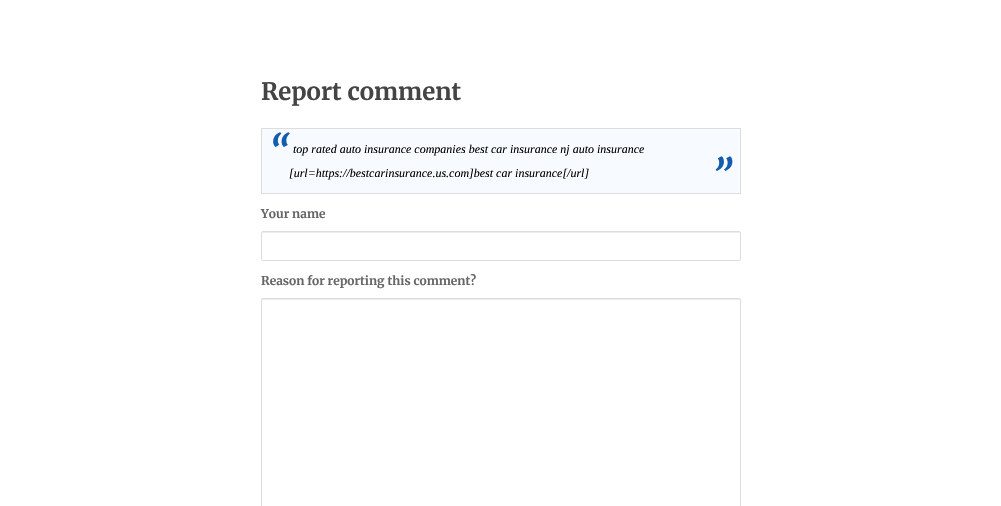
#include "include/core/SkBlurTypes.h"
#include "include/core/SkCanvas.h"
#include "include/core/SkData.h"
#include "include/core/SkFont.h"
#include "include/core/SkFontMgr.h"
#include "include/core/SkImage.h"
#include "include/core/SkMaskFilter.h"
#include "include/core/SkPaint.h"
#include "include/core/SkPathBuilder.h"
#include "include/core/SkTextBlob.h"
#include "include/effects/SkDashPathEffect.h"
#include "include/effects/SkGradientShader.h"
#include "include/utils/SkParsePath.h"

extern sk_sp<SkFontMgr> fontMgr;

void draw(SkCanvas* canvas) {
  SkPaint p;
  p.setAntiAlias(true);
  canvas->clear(SK_ColorWHITE);
  p.setColor(SkColorSetRGB(247, 250, 254));
  canvas->drawRect(SkRect::MakeLTRB(261.5f, 128.5f, 740.5f, 193.5f), p);
  p.setStyle(SkPaint::kStroke_Style);
  p.setStrokeWidth(1);
  p.setColor(SkColorSetRGB(221, 221, 221));
  canvas->drawRect(SkRect::MakeLTRB(261.5f, 128.5f, 740.5f, 193.5f), p);
  p.setStyle(SkPaint::kFill_Style);
  p.setColor(SkColorSetRGB(236, 236, 236));
  canvas->drawPath(SkPathBuilder(SkPathFillType::kEvenOdd).moveTo(263, 233).lineTo(740, 233).lineTo(739, 232).lineTo(263, 232).lineTo(262, 233).lineTo(262, 234).close().moveTo(740, 259).lineTo(740, 260).close().detach(), p);
  p.setStyle(SkPaint::kStroke_Style);
  p.setColor(SkColorSetRGB(221, 221, 221));
  canvas->drawRoundRect(SkRect::MakeLTRB(261.5f, 231.5f, 740.5f, 260.5f), 1.5f, 1.5f, p);
  p.setStyle(SkPaint::kFill_Style);
  p.setColor(SkColorSetRGB(236, 236, 236));
  canvas->drawPath(SkPathBuilder().moveTo(263, 300).lineTo(739, 300).cubicTo(740, 300, 740, 300, 740, 301).lineTo(740, 300).lineTo(739, 299).lineTo(263, 299).cubicTo(262, 299, 262, 300, 262, 301).cubicTo(262, 300, 262, 300, 263, 300).close().detach(), p);
  p.setStyle(SkPaint::kStroke_Style);
  p.setColor(SkColorSetRGB(221, 221, 221));
  canvas->drawRoundRect(SkRect::MakeLTRB(261.5f, 298.5f, 740.5f, 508.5f), 1.5f, 1.5f, p);
  SkFont font1(fontMgr->matchFamilyStyle("Merriweather", SkFontStyle::Bold()), 24);
  font1.setSubpixel(true);
  p.setStyle(SkPaint::kFill_Style);
  p.setColor(SkColorSetRGB(68, 68, 68));
  canvas->drawString("Report comment", 261, 100, font1, p);
  SkFont font2(fontMgr->matchFamilyStyle("Merriweather", SkFontStyle::BoldItalic()), 40);
  font2.setSubpixel(true);
  p.setColor(SkColorSetRGB(19, 92, 174));
  canvas->drawString("“", 270, 166, font2, p);
  SkFont font3(fontMgr->matchFamilyStyle("Liberation Serif", SkFontStyle::Italic()), 12);
  font3.setSubpixel(true);
  p.setColor(SK_ColorBLACK);
  canvas->drawString("top rated auto insurance companies best car insurance nj auto insurance", 293, 153, font3, p);
  p.setColor(SkColorSetRGB(19, 92, 174));
  canvas->drawString("”", 712, 190, font2, p);
  p.setColor(SK_ColorBLACK);
  canvas->drawString("[url=https://bestcarinsurance.us.com]best car insurance[/url]", 289, 177, font3, p);
  SkFont font4(fontMgr->matchFamilyStyle("Merriweather", SkFontStyle::Bold()), 12);
  font4.setSubpixel(true);
  p.setColor(SkColorSetRGB(102, 102, 102));
  canvas->drawString("Your name", 261, 218, font4, p);
  canvas->drawString("Reason for reporting this comment?", 261, 285, font4, p);
}
